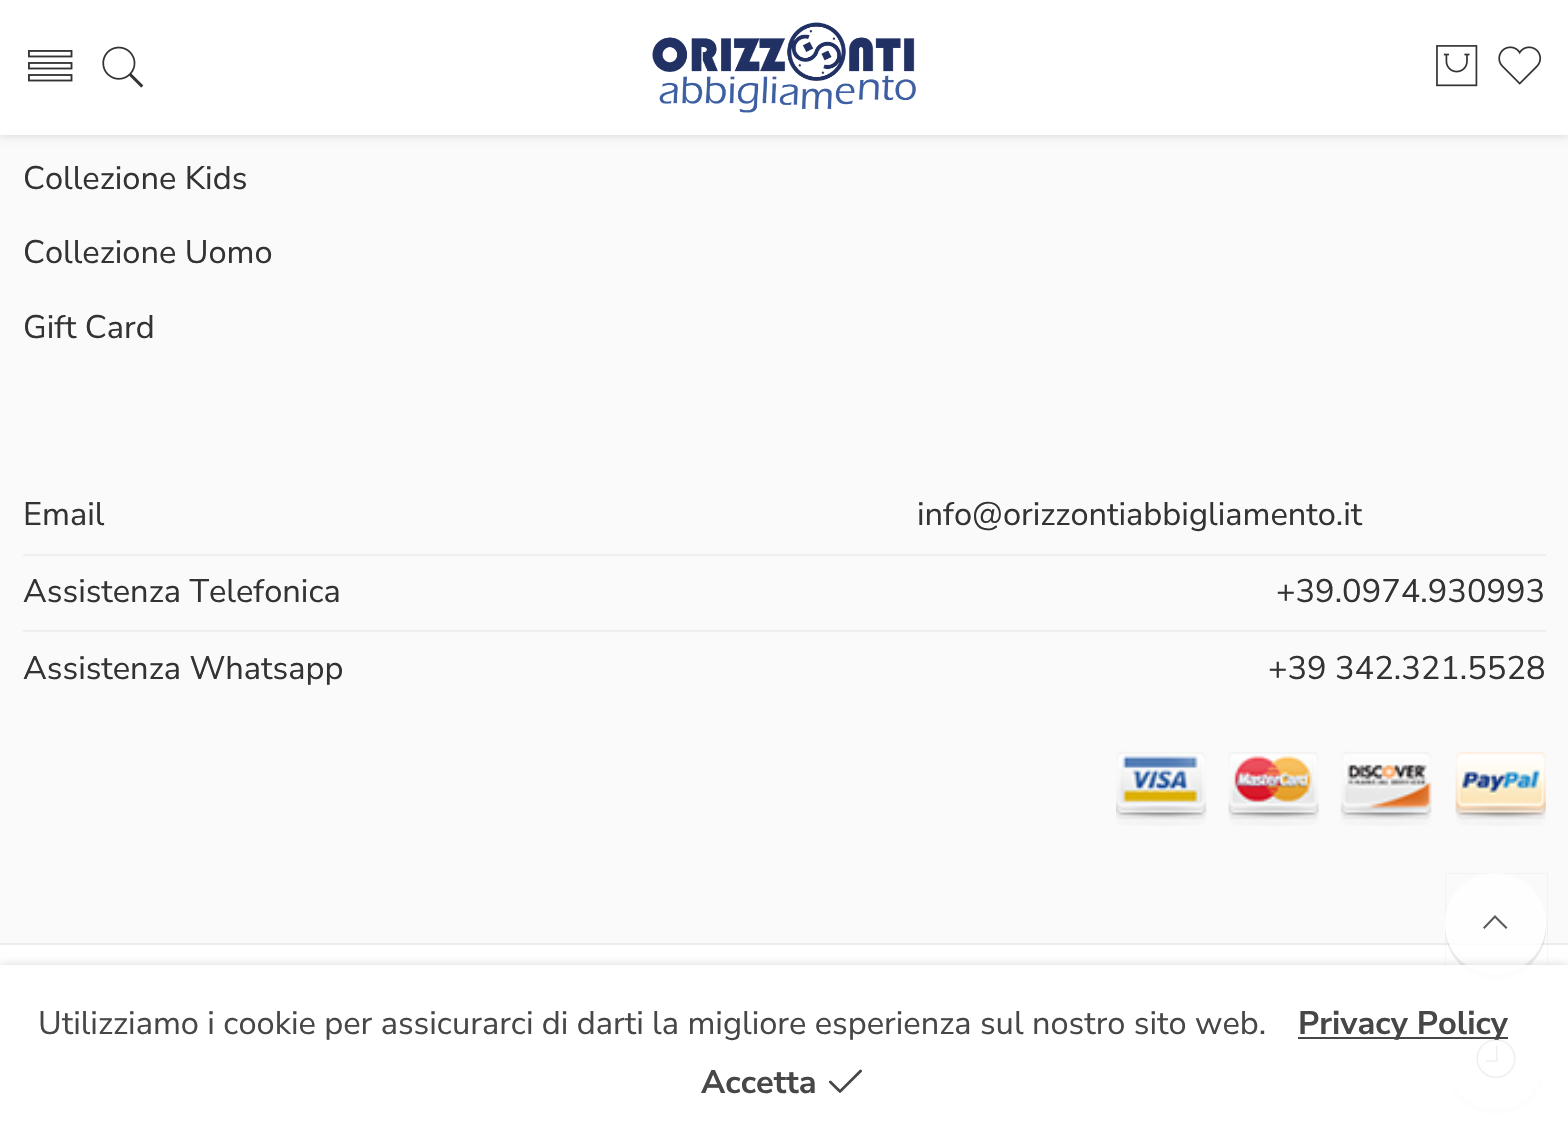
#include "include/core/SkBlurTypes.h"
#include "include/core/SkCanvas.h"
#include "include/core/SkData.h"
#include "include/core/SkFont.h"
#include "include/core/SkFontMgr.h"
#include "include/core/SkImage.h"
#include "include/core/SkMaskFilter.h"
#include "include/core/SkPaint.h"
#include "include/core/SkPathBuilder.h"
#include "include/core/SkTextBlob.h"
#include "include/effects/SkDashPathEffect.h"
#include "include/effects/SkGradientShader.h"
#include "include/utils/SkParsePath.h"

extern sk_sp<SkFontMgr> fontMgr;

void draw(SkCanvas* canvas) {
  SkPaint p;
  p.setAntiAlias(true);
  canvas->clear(SK_ColorWHITE);
  p.setColor(SkColorSetRGB(250, 250, 250));
  canvas->drawRect(SkRect::MakeLTRB(0, 135, 1568, 943), p);
  p.setColor(SkColorSetARGB(26, 0, 0, 0));
  p.setMaskFilter(SkMaskFilter::MakeBlur(kNormal_SkBlurStyle, 3.5f));
  canvas->drawRect(SkRect::MakeLTRB(0, 2, 1568, 137), p);
  p.setMaskFilter(nullptr);
  p.setColor(SK_ColorWHITE);
  canvas->drawRect(SkRect::MakeLTRB(0, 0, 1568, 135), p);
  canvas->drawImageRect(SkImages::DeferredFromEncodedData(SkData::MakeFromFileName("images/1.png")), SkRect::MakeLTRB(28, 50, 73, 82), SkSamplingOptions());
  canvas->drawImageRect(SkImages::DeferredFromEncodedData(SkData::MakeFromFileName("images/2.png")), SkRect::MakeLTRB(102, 46, 144, 88), SkSamplingOptions());
  canvas->drawImageRect(SkImages::DeferredFromEncodedData(SkData::MakeFromFileName("images/3.png")), SkRect::MakeLTRB(652, 22, 916, 113), SkSamplingOptions());
  canvas->drawImageRect(SkImages::DeferredFromEncodedData(SkData::MakeFromFileName("images/4.png")), SkRect::MakeLTRB(1436, 45, 1478, 87), SkSamplingOptions());
  canvas->drawImageRect(SkImages::DeferredFromEncodedData(SkData::MakeFromFileName("images/5.png")), SkRect::MakeLTRB(1498, 46, 1542, 85), SkSamplingOptions());
  p.setColor(SkColorSetRGB(239, 239, 239));
  canvas->drawRect(SkRect::MakeLTRB(23, 554, 1546, 556), p);
  canvas->drawRect(SkRect::MakeLTRB(23, 630, 1546, 632), p);
  canvas->drawImageRect(SkImages::DeferredFromEncodedData(SkData::MakeFromFileName("images/6.png")), SkRect::MakeLTRB(1116, 751, 1546, 826), SkSamplingOptions());
  p.setColor(SkColorSetRGB(236, 236, 236));
  canvas->drawRect(SkRect::MakeLTRB(0, 943, 1568, 945), p);
  p.setStyle(SkPaint::kStroke_Style);
  p.setStrokeWidth(1);
  p.setColor(SkColorSetARGB(8, 0, 0, 0));
  canvas->drawRect(SkRect::MakeLTRB(1445.5f, 873.5f, 1547.5f, 976.5f), p);
  p.setStyle(SkPaint::kFill_Style);
  p.setColor(SkColorSetARGB(20, 0, 0, 0));
  canvas->drawPath(SkPathBuilder().moveTo(1445, 931).cubicTo(1448, 979, 1511, 997, 1537, 957).cubicTo(1544, 947, 1547, 935, 1546, 923).cubicTo(1546, 934, 1543, 944, 1537, 952).cubicTo(1511, 990, 1452, 976, 1445, 931).close().detach(), p);
  p.setColor(SkColorSetARGB(204, 255, 255, 255));
  canvas->drawCircle(1495.5f, 923.5f, 50.5f, p);
  p.setColor(SkColorSetRGB(91, 91, 91));
  canvas->drawPath(SkPathBuilder().moveTo(1496.5f, 916.5f).lineTo(1495, 915).lineTo(1483, 927.5f).lineTo(1484.5f, 929).lineTo(1495, 918).lineTo(1506, 929).lineTo(1507.5f, 927.5f).close().detach(), p);
  p.setStyle(SkPaint::kStroke_Style);
  p.setColor(SkColorSetRGB(247, 247, 247));
  canvas->drawRoundRect(SkRect::MakeLTRB(1445.5f, 1008.5f, 1547.5f, 1111.5f), 51, 51, p);
  p.setStyle(SkPaint::kFill_Style);
  p.setColor(SkColorSetARGB(20, 0, 0, 0));
  canvas->drawPath(SkPathBuilder().moveTo(1445, 1066).cubicTo(1448, 1114, 1511, 1132, 1537, 1092).cubicTo(1544, 1082, 1547, 1070, 1546, 1058).cubicTo(1546, 1069, 1543, 1079, 1537, 1087).cubicTo(1511, 1125, 1452, 1111, 1445, 1066).close().detach(), p);
  p.setColor(SK_ColorWHITE);
  canvas->drawCircle(1495.5f, 1058.5f, 50.5f, p);
  canvas->drawImageRect(SkImages::DeferredFromEncodedData(SkData::MakeFromFileName("images/7.png")), SkRect::MakeLTRB(1476, 1039, 1516, 1079), SkSamplingOptions());
  canvas->save();
  canvas->clipPath(SkPathBuilder(SkPathFillType::kEvenOdd).moveTo(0, 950).lineTo(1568, 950).lineTo(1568, 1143).lineTo(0, 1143).close().moveTo(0, 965).lineTo(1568, 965).lineTo(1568, 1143).lineTo(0, 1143).close().detach(), true);
  p.setColor(SkColorSetARGB(69, 0, 0, 0));
  p.setMaskFilter(SkMaskFilter::MakeBlur(kNormal_SkBlurStyle, 5.5f));
  canvas->drawRect(SkRect::MakeLTRB(0, 968, 1568, 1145), p);
  p.setMaskFilter(nullptr);
  canvas->restore();
  p.setColor(SkColorSetARGB(230, 255, 255, 255));
  canvas->drawRect(SkRect::MakeLTRB(0, 965, 1568, 1114), p);
  p.setColor(SkColorSetRGB(71, 71, 71));
  canvas->drawRect(SkRect::MakeLTRB(1298, 1037, 1508, 1039), p);
  canvas->drawImageRect(SkImages::DeferredFromEncodedData(SkData::MakeFromFileName("images/8.png")), SkRect::MakeLTRB(829, 1069, 862, 1093), SkSamplingOptions());
  SkFont font1(fontMgr->matchFamilyStyle("Nunito Sans", SkFontStyle::Normal()), 32.6f);
  font1.setSubpixel(true);
  p.setColor(SkColorSetRGB(51, 51, 51));
  canvas->drawString("Collezione Kids", 23, 189, font1, p);
  canvas->drawString("Collezione Uomo", 23, 263, font1, p);
  canvas->drawString("Gift Card", 23, 338, font1, p);
  canvas->drawString("Email", 23, 525, font1, p);
  canvas->drawString("info@orizzontiabbigliamento.it", 917, 525, font1, p);
  canvas->drawString("Assistenza Telefonica", 23, 602, font1, p);
  canvas->drawString("+39.0974.930993", 1276, 602, font1, p);
  canvas->drawString("Assistenza Whatsapp", 23, 679, font1, p);
  canvas->drawString("+39 342.321.5528", 1268, 679, font1, p);
  p.setColor(SkColorSetRGB(71, 71, 71));
  canvas->drawString("Utilizziamo i cookie per assicurarci di darti la migliore esperienza sul nostro sito web.", 38, 1034, font1, p);
  SkFont font2(fontMgr->matchFamilyStyle("Nunito Sans", SkFontStyle::Bold()), 32.6f);
  font2.setSubpixel(true);
  canvas->drawString("Privacy Policy", 1298, 1034, font2, p);
  canvas->drawString("Accetta", 701, 1093, font2, p);
}
